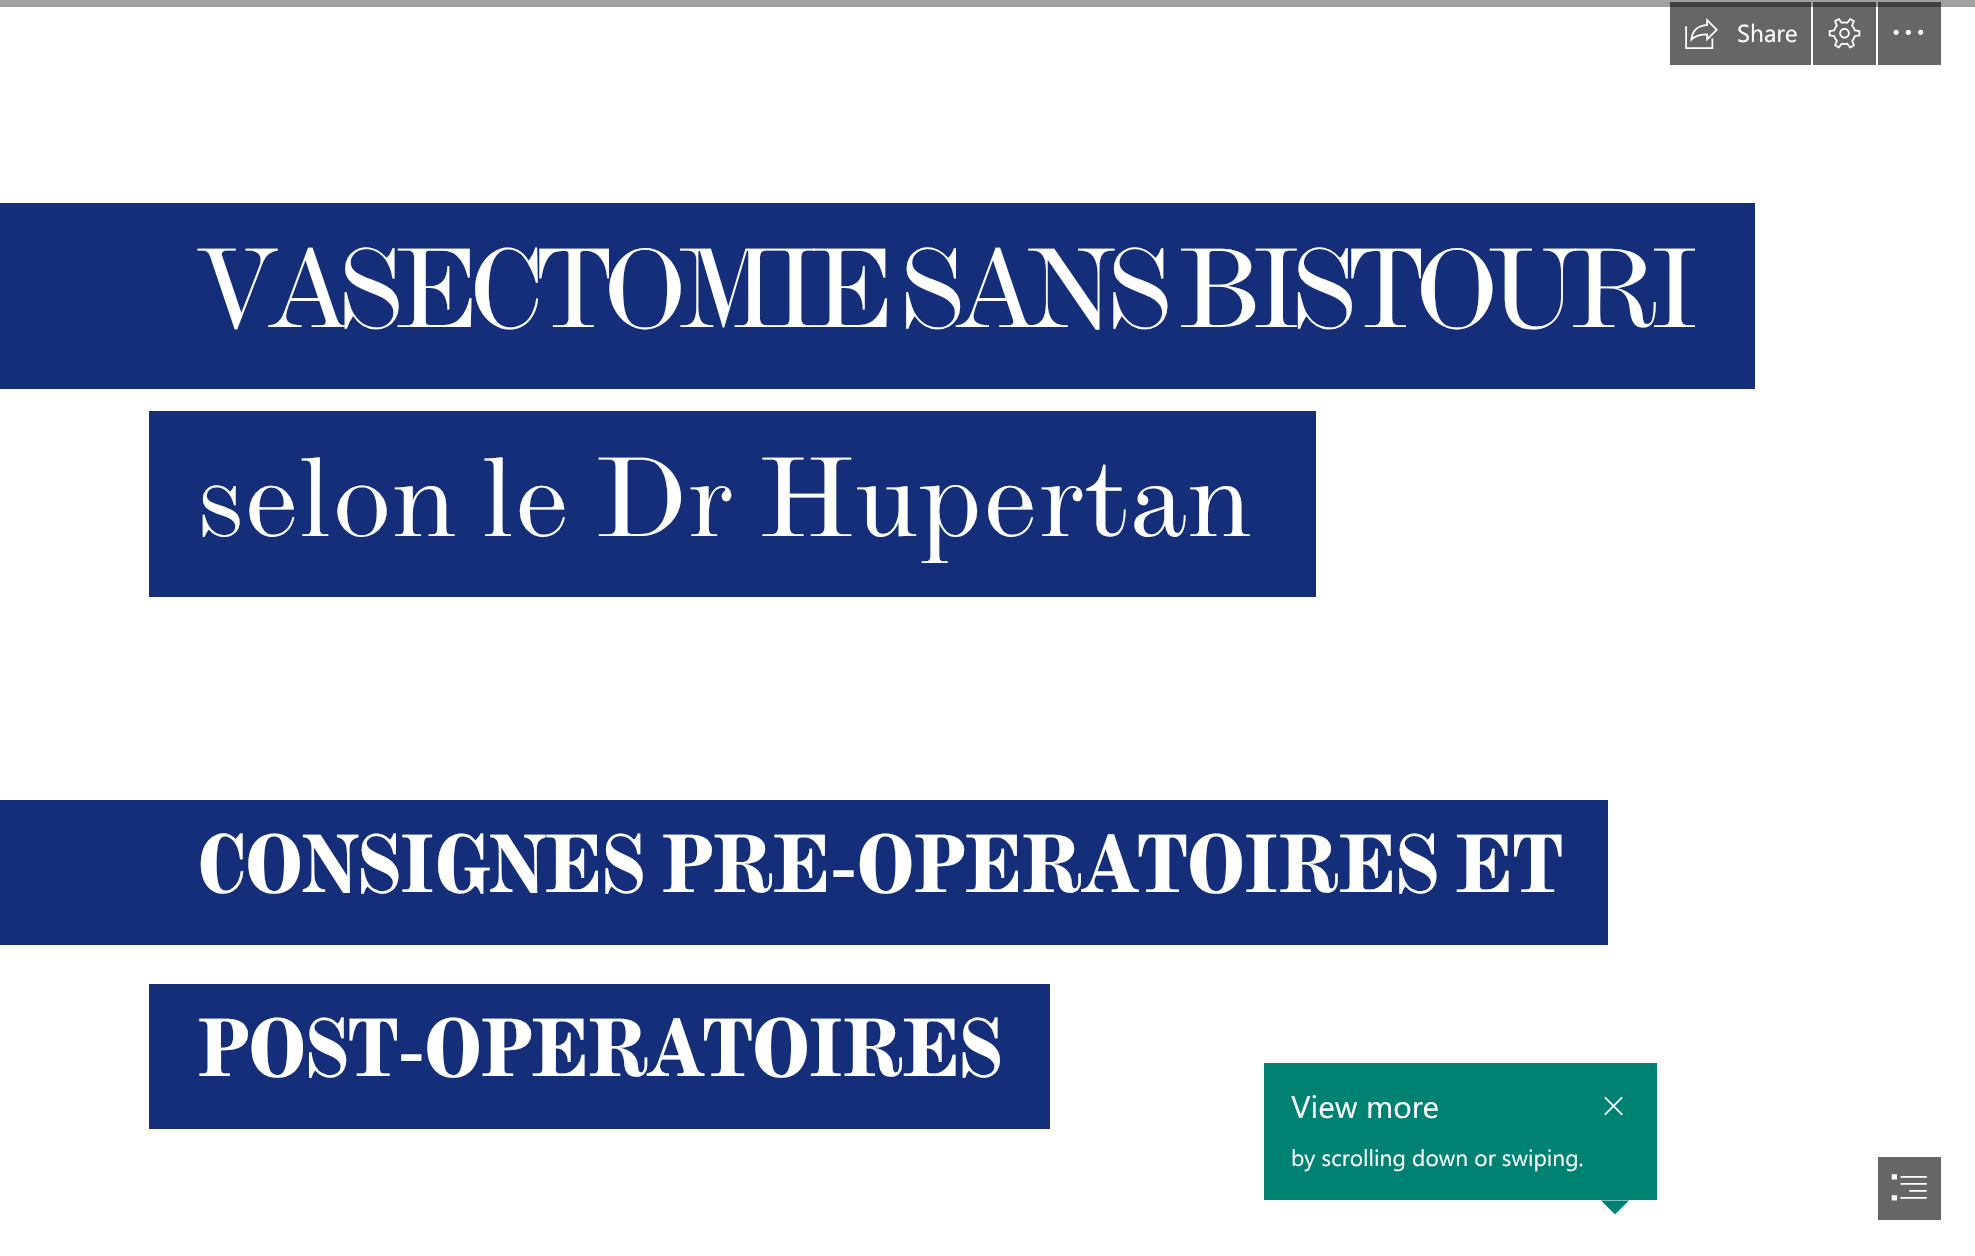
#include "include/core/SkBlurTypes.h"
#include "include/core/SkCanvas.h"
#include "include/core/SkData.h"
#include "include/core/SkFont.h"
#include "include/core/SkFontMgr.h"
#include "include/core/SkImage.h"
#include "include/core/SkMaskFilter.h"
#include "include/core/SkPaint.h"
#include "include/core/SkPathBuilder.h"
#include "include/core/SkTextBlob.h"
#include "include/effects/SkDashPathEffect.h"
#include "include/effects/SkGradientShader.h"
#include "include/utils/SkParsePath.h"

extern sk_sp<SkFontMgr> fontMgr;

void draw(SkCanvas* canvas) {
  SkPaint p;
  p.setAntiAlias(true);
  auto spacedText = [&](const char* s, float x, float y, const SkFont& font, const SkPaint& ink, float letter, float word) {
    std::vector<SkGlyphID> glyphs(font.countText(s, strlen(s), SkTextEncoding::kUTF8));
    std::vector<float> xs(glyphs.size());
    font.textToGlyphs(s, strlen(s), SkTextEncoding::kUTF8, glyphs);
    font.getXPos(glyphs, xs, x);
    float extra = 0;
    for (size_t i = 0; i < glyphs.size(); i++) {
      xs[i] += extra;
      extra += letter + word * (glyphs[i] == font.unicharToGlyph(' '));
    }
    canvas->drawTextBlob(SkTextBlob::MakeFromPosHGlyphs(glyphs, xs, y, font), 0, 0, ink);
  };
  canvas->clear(SK_ColorWHITE);
  p.setColor(SkColorSetRGB(102, 102, 102));
  canvas->drawRect(SkRect::MakeLTRB(1670, 7, 1811, 65), p);
  canvas->drawImageRect(SkImages::DeferredFromEncodedData(SkData::MakeFromFileName("images/1.png")), SkRect::MakeLTRB(1685, 18, 1718, 49), SkSamplingOptions());
  canvas->drawRect(SkRect::MakeLTRB(1813, 7, 1876, 65), p);
  canvas->drawImageRect(SkImages::DeferredFromEncodedData(SkData::MakeFromFileName("images/2.png")), SkRect::MakeLTRB(1828, 18, 1861, 49), SkSamplingOptions());
  canvas->drawRect(SkRect::MakeLTRB(1878, 7, 1941, 65), p);
  canvas->drawImageRect(SkImages::DeferredFromEncodedData(SkData::MakeFromFileName("images/3.png")), SkRect::MakeLTRB(1893, 29, 1924, 35), SkSamplingOptions());
  p.setColor(SkColorSetRGB(160, 160, 160));
  canvas->drawRect(SkRect::MakeLTRB(0, 0, 1975, 7), p);
  p.setColor(SkColorSetRGB(64, 64, 64));
  canvas->drawRect(SkRect::MakeLTRB(1878, 2, 1941, 7), p);
  canvas->drawRect(SkRect::MakeLTRB(1813, 2, 1876, 7), p);
  canvas->drawRect(SkRect::MakeLTRB(1670, 2, 1811, 7), p);
  p.setColor(SkColorSetRGB(21, 46, 121));
  canvas->drawRect(SkRect::MakeLTRB(0, 203, 1755, 389), p);
  canvas->drawRect(SkRect::MakeLTRB(149, 411, 1316, 597), p);
  canvas->drawRect(SkRect::MakeLTRB(0, 800, 1608, 945), p);
  canvas->drawRect(SkRect::MakeLTRB(149, 984, 1050, 1129), p);
  p.setColor(SkColorSetRGB(0, 130, 114));
  canvas->drawRect(SkRect::MakeLTRB(1264, 1063, 1657, 1200), p);
  canvas->drawImageRect(SkImages::DeferredFromEncodedData(SkData::MakeFromFileName("images/4.png")), SkRect::MakeLTRB(1604, 1096, 1623, 1116), SkSamplingOptions());
  canvas->drawPath(SkPathBuilder().moveTo(1601, 1200.5f).lineTo(1629, 1200.5f).lineTo(1615, 1214.5f).close().detach(), p);
  p.setColor(SkColorSetRGB(102, 102, 102));
  canvas->drawRect(SkRect::MakeLTRB(1878, 1157, 1941, 1220), p);
  canvas->drawImageRect(SkImages::DeferredFromEncodedData(SkData::MakeFromFileName("images/5.png")), SkRect::MakeLTRB(1891, 1174, 1927, 1201), SkSamplingOptions());
  SkFont font1(fontMgr->matchFamilyStyle("Segoe UI", SkFontStyle::Normal()), 24.5f);
  font1.setSubpixel(true);
  p.setColor(SK_ColorWHITE);
  canvas->drawString("Share", 1737, 42, font1, p);
  SkFont font2(fontMgr->matchFamilyStyle("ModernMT", SkFontStyle::Normal()), 115.75f);
  font2.setSubpixel(true);
  spacedText("VASECTOMIE SANS BISTOURI", 197, 327, font2, p, -10.6f, 0);
  spacedText("selon le Dr Hupertan", 197, 536, font2, p, -0.25f, 0);
  SkFont font3(fontMgr->matchFamilyStyle("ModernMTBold", SkFontStyle::Bold()), 84.9f);
  font3.setSubpixel(true);
  spacedText("CONSIGNES PRE-OPERATOIRES ET", 197, 892, font3, p, -1.8f, 0);
  spacedText("POST-OPERATOIRES", 197, 1076, font3, p, -2.2f, 0);
  SkFont font4(fontMgr->matchFamilyStyle("Segoe UI", SkFontStyle::Normal()), 31.5f);
  font4.setSubpixel(true);
  canvas->drawString("View more", 1291, 1118, font4, p);
  SkFont font5(fontMgr->matchFamilyStyle("Segoe UI", SkFontStyle::Normal()), 22.75f);
  font5.setSubpixel(true);
  canvas->drawString("by scrolling down or swiping.", 1291, 1166, font5, p);
}
